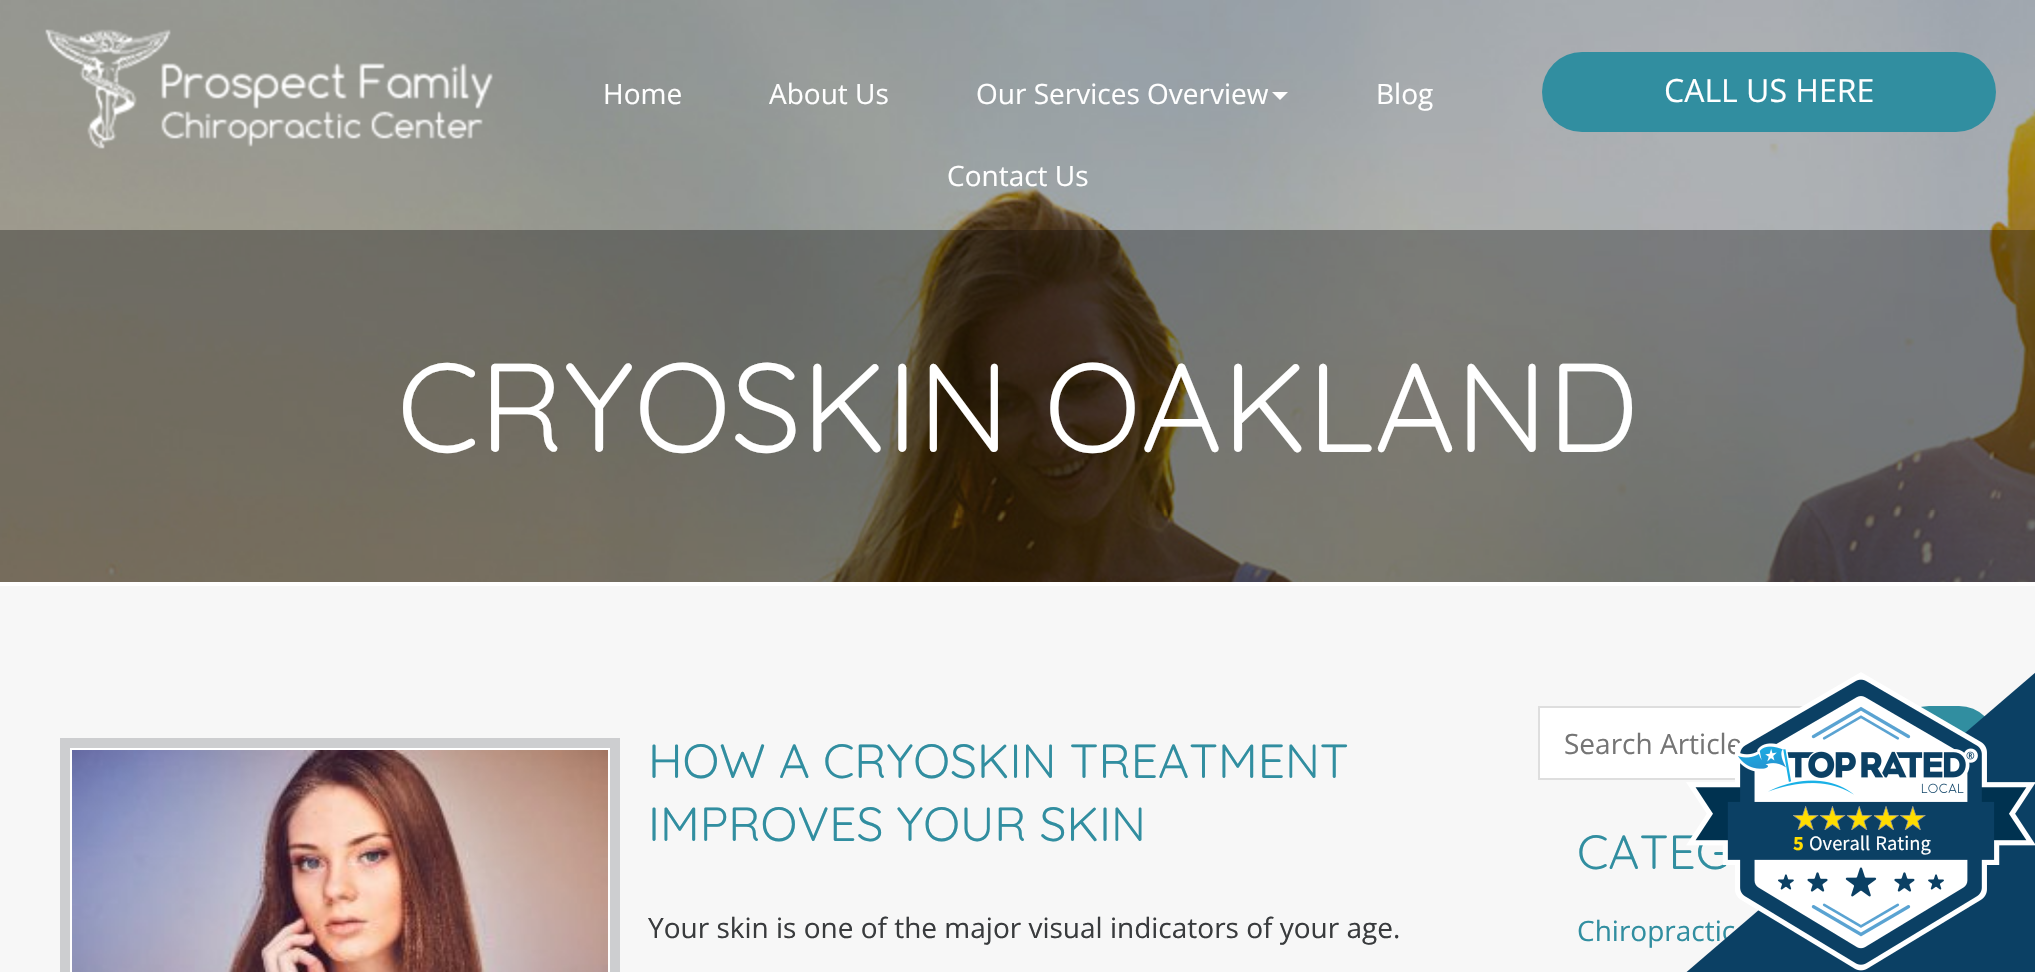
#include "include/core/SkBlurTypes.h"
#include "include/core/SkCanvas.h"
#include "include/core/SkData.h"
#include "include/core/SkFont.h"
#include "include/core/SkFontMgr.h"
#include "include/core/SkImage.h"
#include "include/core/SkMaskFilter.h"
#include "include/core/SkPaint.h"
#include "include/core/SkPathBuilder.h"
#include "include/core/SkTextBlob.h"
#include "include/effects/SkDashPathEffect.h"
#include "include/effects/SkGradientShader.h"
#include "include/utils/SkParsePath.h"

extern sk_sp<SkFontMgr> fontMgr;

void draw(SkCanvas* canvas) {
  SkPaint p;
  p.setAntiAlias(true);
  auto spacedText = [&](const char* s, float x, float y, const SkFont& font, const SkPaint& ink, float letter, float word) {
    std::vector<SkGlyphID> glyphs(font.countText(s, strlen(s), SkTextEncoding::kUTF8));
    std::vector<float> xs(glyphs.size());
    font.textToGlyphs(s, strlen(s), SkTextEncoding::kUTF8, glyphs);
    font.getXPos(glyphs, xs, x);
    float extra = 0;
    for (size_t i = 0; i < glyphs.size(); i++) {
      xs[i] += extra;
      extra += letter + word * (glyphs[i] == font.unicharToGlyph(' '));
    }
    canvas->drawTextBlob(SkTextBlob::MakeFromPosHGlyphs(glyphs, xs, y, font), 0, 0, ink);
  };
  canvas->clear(SK_ColorWHITE);
  canvas->drawImageRect(SkImages::DeferredFromEncodedData(SkData::MakeFromFileName("images/1.png")), SkRect::MakeLTRB(0, 0, 2035, 582), SkSamplingOptions());
  canvas->drawImageRect(SkImages::DeferredFromEncodedData(SkData::MakeFromFileName("images/2.png")), SkRect::MakeLTRB(45, 29, 493, 149), SkSamplingOptions());
  p.setColor(SK_ColorWHITE);
  canvas->drawPath(SkPathBuilder().moveTo(1272, 92).lineTo(1288, 92).lineTo(1280, 100).close().detach(), p);
  p.setColor(SkColorSetRGB(49, 142, 160));
  canvas->drawRoundRect(SkRect::MakeLTRB(1542, 52, 1996, 132), 40, 40, p);
  p.setColor(SkColorSetARGB(77, 0, 0, 0));
  canvas->drawRect(SkRect::MakeLTRB(0, 230, 2035, 582), p);
  p.setColor(SkColorSetRGB(247, 247, 247));
  canvas->drawRect(SkRect::MakeLTRB(0, 586, 2035, 972), p);
  p.setColor(SK_ColorWHITE);
  canvas->drawRect(SkRect::MakeLTRB(65, 743, 615, 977), p);
  p.setStyle(SkPaint::kStroke_Style);
  p.setStrokeWidth(10);
  p.setColor(SkColorSetRGB(205, 206, 208));
  canvas->drawRect(SkRect::MakeLTRB(65, 743, 615, 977), p);
  canvas->drawImageRect(SkImages::DeferredFromEncodedData(SkData::MakeFromFileName("images/3.png")), SkRect::MakeLTRB(72, 750, 608, 972), SkSamplingOptions());
  p.setStyle(SkPaint::kFill_Style);
  p.setColor(SK_ColorWHITE);
  canvas->drawRect(SkRect::MakeLTRB(1540, 708, 1800, 778), p);
  p.setStyle(SkPaint::kStroke_Style);
  p.setStrokeWidth(2);
  p.setColor(SkColorSetRGB(222, 222, 222));
  canvas->drawRect(SkRect::MakeLTRB(1539, 707, 1881, 779), p);
  p.setStyle(SkPaint::kFill_Style);
  p.setColor(SkColorSetRGB(49, 142, 160));
  canvas->drawRoundRect(SkRect::MakeLTRB(1892, 706, 1996, 780), 37, 37, p);
  SkFont font1(fontMgr->matchFamilyStyle("Open Sans", SkFontStyle::Normal()), 28);
  font1.setSubpixel(true);
  p.setColor(SK_ColorWHITE);
  canvas->drawString("Home", 603, 104, font1, p);
  canvas->drawString("About Us", 769, 104, font1, p);
  canvas->drawString("Our Services Overview", 976, 104, font1, p);
  canvas->drawString("Blog", 1376, 104, font1, p);
  canvas->drawString("Contact Us", 947, 186, font1, p);
  SkFont font2(fontMgr->matchFamilyStyle("Open Sans", SkFontStyle::Normal()), 32);
  font2.setSubpixel(true);
  canvas->drawString("CALL US HERE", 1664, 102, font2, p);
  SkFont font3(fontMgr->matchFamilyStyle("Quicksand", SkFontStyle(300, SkFontStyle::kNormal_Width, SkFontStyle::kUpright_Slant)), 126);
  font3.setSubpixel(true);
  canvas->drawString("CRYOSKIN OAKLAND", 397, 452, font3, p);
  SkFont font4(fontMgr->matchFamilyStyle("Quicksand", SkFontStyle(300, SkFontStyle::kNormal_Width, SkFontStyle::kUpright_Slant)), 48);
  font4.setSubpixel(true);
  p.setColor(SkColorSetRGB(49, 142, 160));
  canvas->drawString("HOW A CRYOSKIN TREATMENT", 648, 778, font4, p);
  canvas->drawString("IMPROVES YOUR SKIN", 648, 841, font4, p);
  p.setColor(SkColorSetRGB(57, 59, 61));
  canvas->drawString("Your skin is one of the major visual indicators of your age.", 648, 938, font1, p);
  p.setColor(SkColorSetRGB(117, 117, 117));
  canvas->drawString("Search Article", 1564, 754, font1, p);
  p.setColor(SkColorSetRGB(49, 142, 160));
  canvas->drawString("CATEG", 1577, 869, font4, p);
  canvas->drawString("Chiropractic", 1577, 941, font1, p);
  canvas->drawImageRect(SkImages::DeferredFromEncodedData(SkData::MakeFromFileName("images/4.png")), SkRect::MakeLTRB(1686, 672, 2035, 972), SkSamplingOptions());
  SkFont font5(fontMgr->matchFamilyStyle("Source Sans Pro", SkFontStyle::Bold()), 20.5f);
  font5.setSubpixel(true);
  p.setColor(SkColorSetRGB(255, 221, 0));
  canvas->drawString("5", 1793, 850, font5, p);
  SkFont font6(fontMgr->matchFamilyStyle("Source Sans Pro", SkFontStyle::Normal()), 20.5f);
  font6.setSubpixel(true);
  p.setColor(SK_ColorWHITE);
  spacedText("Overall Rating", 1809, 850, font6, p, 0, 1);
}
